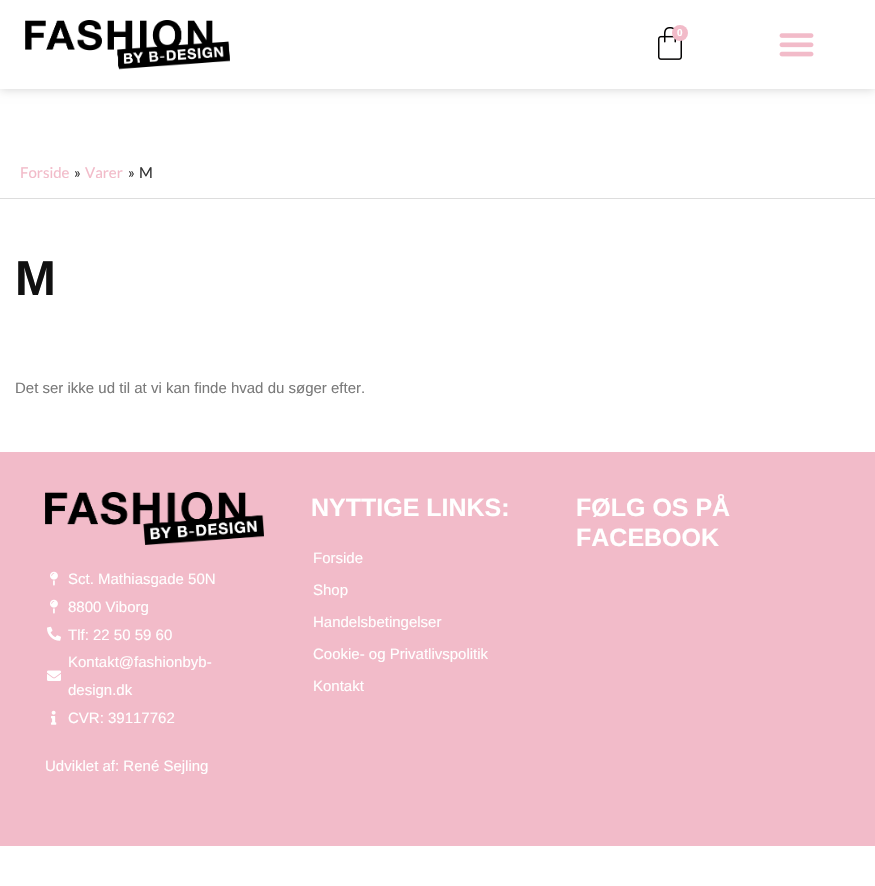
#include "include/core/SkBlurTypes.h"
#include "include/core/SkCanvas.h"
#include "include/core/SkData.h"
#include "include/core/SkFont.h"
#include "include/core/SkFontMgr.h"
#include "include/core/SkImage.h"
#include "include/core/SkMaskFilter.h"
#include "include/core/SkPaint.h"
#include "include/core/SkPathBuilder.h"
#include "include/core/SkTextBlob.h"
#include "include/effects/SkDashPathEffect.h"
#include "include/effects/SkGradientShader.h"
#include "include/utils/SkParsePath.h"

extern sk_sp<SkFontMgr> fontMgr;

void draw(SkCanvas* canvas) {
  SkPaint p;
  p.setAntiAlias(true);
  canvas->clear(SK_ColorWHITE);
  p.setColor(SkColorSetARGB(46, 0, 0, 0));
  p.setMaskFilter(SkMaskFilter::MakeBlur(kNormal_SkBlurStyle, 5));
  canvas->drawRect(SkRect::MakeLTRB(0, 0, 875, 89), p);
  p.setMaskFilter(nullptr);
  p.setColor(SK_ColorWHITE);
  canvas->drawRect(SkRect::MakeLTRB(0, 0, 875, 89), p);
  canvas->drawImageRect(SkImages::DeferredFromEncodedData(SkData::MakeFromFileName("images/1.png")), SkRect::MakeLTRB(25, 20, 230, 70), SkSamplingOptions());
  canvas->drawImageRect(SkImages::DeferredFromEncodedData(SkData::MakeFromFileName("images/2.png")), SkRect::MakeLTRB(658, 27, 682, 60), SkSamplingOptions());
  p.setColor(SkColorSetRGB(242, 187, 201));
  canvas->drawCircle(680, 33, 8, p);
  canvas->drawImageRect(SkImages::DeferredFromEncodedData(SkData::MakeFromFileName("images/3.png")), SkRect::MakeLTRB(779, 33, 814, 57), SkSamplingOptions());
  p.setColor(SkColorSetRGB(221, 221, 221));
  canvas->drawRect(SkRect::MakeLTRB(0, 198, 875, 199), p);
  p.setColor(SkColorSetRGB(242, 187, 201));
  canvas->drawRect(SkRect::MakeLTRB(0, 452, 875, 846), p);
  canvas->drawImageRect(SkImages::DeferredFromEncodedData(SkData::MakeFromFileName("images/4.png")), SkRect::MakeLTRB(45, 492, 264, 545), SkSamplingOptions());
  canvas->drawImageRect(SkImages::DeferredFromEncodedData(SkData::MakeFromFileName("images/5.png")), SkRect::MakeLTRB(50, 571, 58, 586), SkSamplingOptions());
  canvas->drawImageRect(SkImages::DeferredFromEncodedData(SkData::MakeFromFileName("images/5.png")), SkRect::MakeLTRB(50, 599, 58, 614), SkSamplingOptions());
  canvas->drawImageRect(SkImages::DeferredFromEncodedData(SkData::MakeFromFileName("images/6.png")), SkRect::MakeLTRB(47, 626, 61, 641), SkSamplingOptions());
  canvas->drawImageRect(SkImages::DeferredFromEncodedData(SkData::MakeFromFileName("images/7.png")), SkRect::MakeLTRB(47, 670, 61, 681), SkSamplingOptions());
  canvas->drawImageRect(SkImages::DeferredFromEncodedData(SkData::MakeFromFileName("images/8.png")), SkRect::MakeLTRB(51, 710, 57, 725), SkSamplingOptions());
  SkFont font1(fontMgr->matchFamilyStyle("Liberation Sans", SkFontStyle::Bold()), 10);
  font1.setSubpixel(true);
  p.setColor(SK_ColorWHITE);
  canvas->drawString("0", 677, 36, font1, p);
  SkFont font2(fontMgr->matchFamilyStyle("Lato", SkFontStyle::Normal()), 15);
  font2.setSubpixel(true);
  p.setColor(SkColorSetRGB(242, 187, 201));
  canvas->drawString("Forside", 20, 178, font2, p);
  p.setColor(SkColorSetRGB(51, 51, 51));
  canvas->drawString("»", 74, 178, font2, p);
  p.setColor(SkColorSetRGB(242, 187, 201));
  canvas->drawString("Varer", 85, 178, font2, p);
  p.setColor(SkColorSetRGB(51, 51, 51));
  canvas->drawString("»", 128, 178, font2, p);
  canvas->drawString("M", 139, 178, font2, p);
  SkFont font3(fontMgr->matchFamilyStyle("Liberation Sans", SkFontStyle::Bold()), 49);
  font3.setSubpixel(true);
  p.setColor(SkColorSetRGB(16, 16, 16));
  canvas->drawString("M", 15, 295, font3, p);
  SkFont font4(fontMgr->matchFamilyStyle("Liberation Sans", SkFontStyle::Normal()), 15);
  font4.setSubpixel(true);
  p.setColor(SkColorSetRGB(122, 122, 122));
  canvas->drawString("Det ser ikke ud til at vi kan finde hvad du søger efter.", 15, 393, font4, p);
  p.setColor(SK_ColorWHITE);
  canvas->drawString("Sct. Mathiasgade 50N", 68, 584, font4, p);
  canvas->drawString("8800 Viborg", 68, 612, font4, p);
  canvas->drawString("Tlf: 22 50 59 60", 68, 640, font4, p);
  canvas->drawString("Kontakt@fashionbyb-", 68, 667, font4, p);
  canvas->drawString("design.dk", 68, 695, font4, p);
  canvas->drawString("CVR: 39117762", 68, 723, font4, p);
  canvas->drawString("Udviklet af: René Sejling", 45, 771, font4, p);
  SkFont font5(fontMgr->matchFamilyStyle("Liberation Sans", SkFontStyle::Bold()), 25);
  font5.setSubpixel(true);
  canvas->drawString("NYTTIGE LINKS:", 311, 516, font5, p);
  canvas->drawString("Forside", 313, 563, font4, p);
  canvas->drawString("Shop", 313, 595, font4, p);
  canvas->drawString("Handelsbetingelser", 313, 627, font4, p);
  canvas->drawString("Cookie- og Privatlivspolitik", 313, 659, font4, p);
  canvas->drawString("Kontakt", 313, 691, font4, p);
  canvas->drawString("FØLG OS PÅ", 576, 516, font5, p);
  canvas->drawString("FACEBOOK", 576, 546, font5, p);
}
